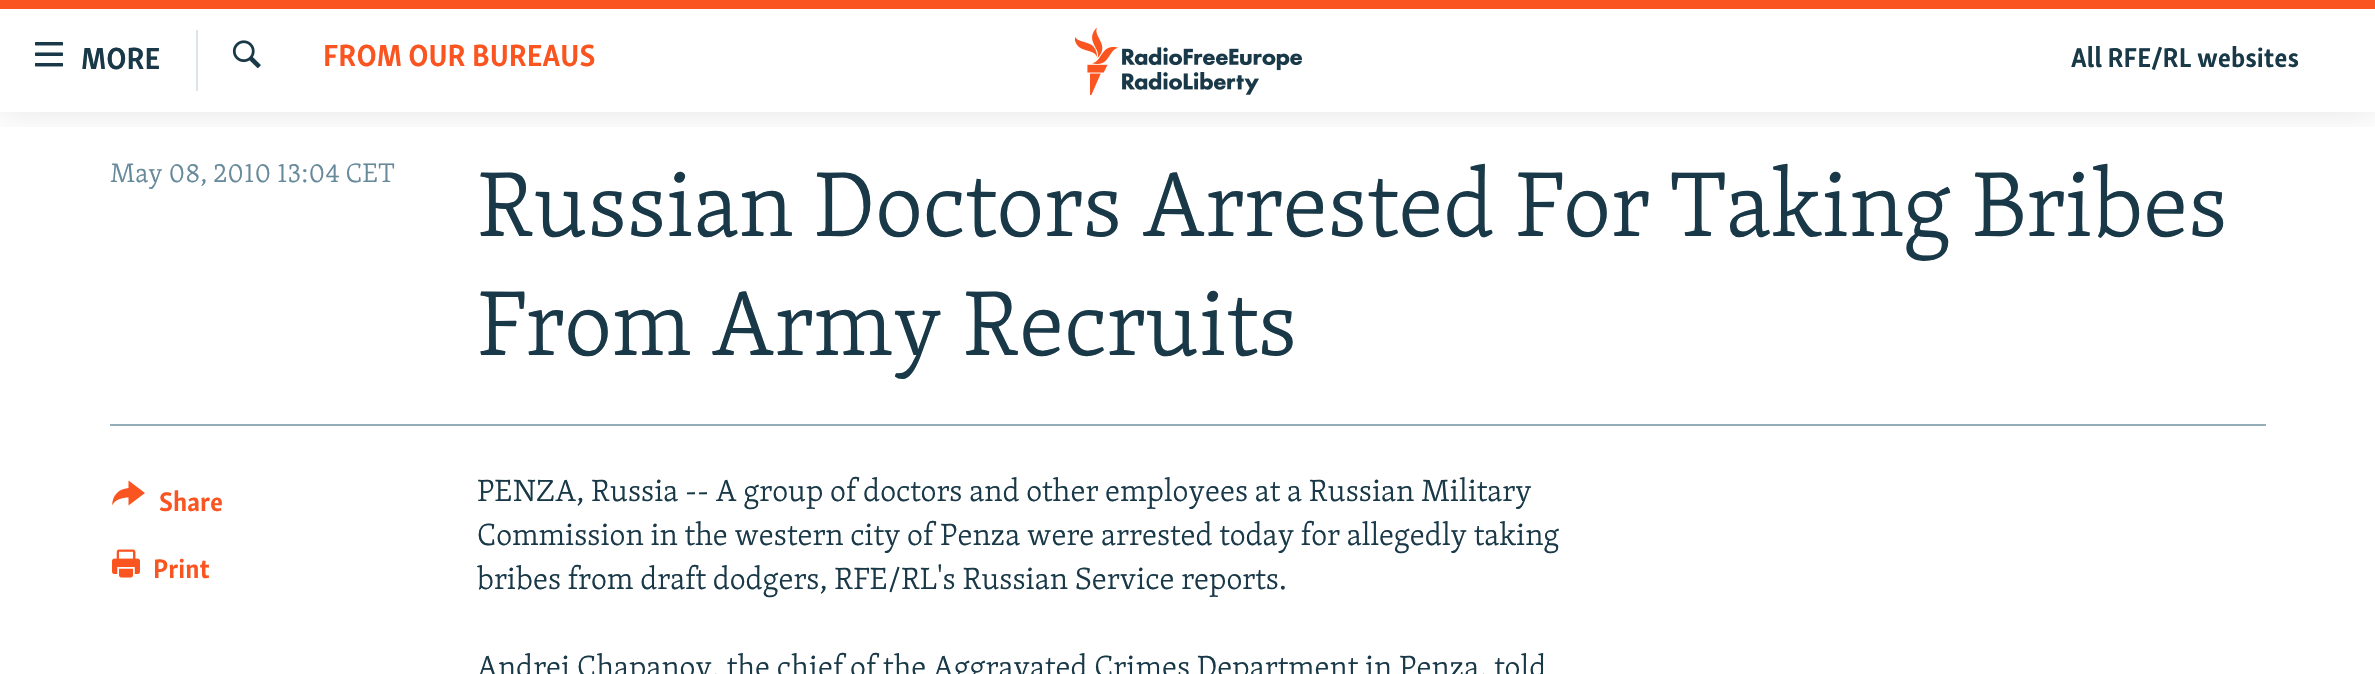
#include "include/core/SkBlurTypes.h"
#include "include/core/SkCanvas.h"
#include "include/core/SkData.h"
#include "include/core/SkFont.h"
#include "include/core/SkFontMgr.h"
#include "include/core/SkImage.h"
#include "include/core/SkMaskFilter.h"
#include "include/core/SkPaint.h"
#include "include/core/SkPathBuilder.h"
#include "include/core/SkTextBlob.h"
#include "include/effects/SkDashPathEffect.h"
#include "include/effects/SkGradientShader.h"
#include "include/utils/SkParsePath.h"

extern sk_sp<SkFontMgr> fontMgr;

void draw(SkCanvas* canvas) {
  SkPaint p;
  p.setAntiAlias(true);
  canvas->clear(SK_ColorWHITE);
  canvas->save();
  canvas->clipRect(SkRect::MakeLTRB(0, 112, 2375, 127));
  p.setColor(SkColorSetARGB(26, 0, 0, 0));
  p.setMaskFilter(SkMaskFilter::MakeBlur(kNormal_SkBlurStyle, 17.5f));
  canvas->drawRect(SkRect::MakeLTRB(0, 0, 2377, 112), p);
  p.setMaskFilter(nullptr);
  canvas->restore();
  p.setColor(SkColorSetRGB(250, 84, 32));
  canvas->drawRect(SkRect::MakeLTRB(0, 0, 2375, 9), p);
  canvas->drawImageRect(SkImages::DeferredFromEncodedData(SkData::MakeFromFileName("images/1.png")), SkRect::MakeLTRB(35, 42, 63, 67), SkSamplingOptions());
  p.setColor(SkColorSetRGB(220, 228, 232));
  canvas->drawRect(SkRect::MakeLTRB(196, 30, 198, 91), p);
  canvas->drawImageRect(SkImages::DeferredFromEncodedData(SkData::MakeFromFileName("images/2.png")), SkRect::MakeLTRB(232, 40, 261, 69), SkSamplingOptions());
  canvas->drawImageRect(SkImages::DeferredFromEncodedData(SkData::MakeFromFileName("images/3.png")), SkRect::MakeLTRB(1075, 27, 1302, 95), SkSamplingOptions());
  p.setColor(SkColorSetRGB(149, 173, 185));
  canvas->drawRect(SkRect::MakeLTRB(110, 424, 2266, 426), p);
  p.setColor(SkColorSetRGB(250, 84, 32));
  canvas->drawPath(SkPathBuilder().moveTo(112, 505.5f).cubicTo(112.5f, 495.5f, 118, 489, 128.5f, 488).lineTo(128.5f, 480.5f).lineTo(145, 493).lineTo(128.5f, 505.5f).lineTo(128.5f, 497.5f).cubicTo(122.5f, 497.5f, 115, 499.5f, 112, 505.5f).close().detach(), p);
  canvas->drawImageRect(SkImages::DeferredFromEncodedData(SkData::MakeFromFileName("images/4.png")), SkRect::MakeLTRB(112, 549, 140, 578), SkSamplingOptions());
  SkFont font1(fontMgr->matchFamilyStyle("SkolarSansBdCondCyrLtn", SkFontStyle::Bold()), 31.5f);
  font1.setSubpixel(true);
  p.setColor(SkColorSetRGB(26, 57, 72));
  canvas->drawString("MORE", 81, 69, font1, p);
  p.setColor(SkColorSetRGB(250, 84, 32));
  canvas->drawString("FROM OUR BUREAUS", 323, 66, font1, p);
  SkFont font2(fontMgr->matchFamilyStyle("SkolarSansBdCondCyrLtn", SkFontStyle::Bold()), 28);
  font2.setSubpixel(true);
  p.setColor(SkColorSetRGB(26, 57, 72));
  canvas->drawString("All RFE/RL websites", 2071, 67, font2, p);
  SkFont font3(fontMgr->matchFamilyStyle("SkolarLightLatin", SkFontStyle(300, SkFontStyle::kNormal_Width, SkFontStyle::kUpright_Slant)), 27.5f);
  font3.setSubpixel(true);
  p.setColor(SkColorSetRGB(103, 138, 155));
  canvas->drawString("May 08, 2010 13:04 CET", 110, 182, font3, p);
  SkFont font4(fontMgr->matchFamilyStyle("SkolarLightLatin", SkFontStyle(300, SkFontStyle::kNormal_Width, SkFontStyle::kUpright_Slant)), 94.5f);
  font4.setSubpixel(true);
  p.setColor(SkColorSetRGB(26, 57, 72));
  canvas->drawString("Russian Doctors Arrested For Taking Bribes", 477, 236, font4, p);
  canvas->drawString("From Army Recruits", 477, 355, font4, p);
  SkFont font5(fontMgr->matchFamilyStyle("SkolarSansBdCondCyrLtn", SkFontStyle::Bold()), 27.5f);
  font5.setSubpixel(true);
  p.setColor(SkColorSetRGB(250, 84, 32));
  canvas->drawString("Share", 159, 511, font5, p);
  canvas->drawString("Print", 153, 578, font5, p);
  SkFont font6(fontMgr->matchFamilyStyle("SkolarLightLatin", SkFontStyle(300, SkFontStyle::kNormal_Width, SkFontStyle::kUpright_Slant)), 31.5f);
  font6.setSubpixel(true);
  p.setColor(SkColorSetRGB(26, 57, 72));
  canvas->drawString("PENZA, Russia -- A group of doctors and other employees at a Russian Military", 477, 501, font6, p);
  canvas->drawString("Commission in the western city of Penza were arrested today for allegedly taking", 477, 545, font6, p);
  canvas->drawString("bribes from draft dodgers, RFE/RL's Russian Service reports.", 477, 589, font6, p);
  canvas->drawString("Andrei Chapanov, the chief of the Aggravated Crimes Department in Penza, told", 477, 677, font6, p);
}
